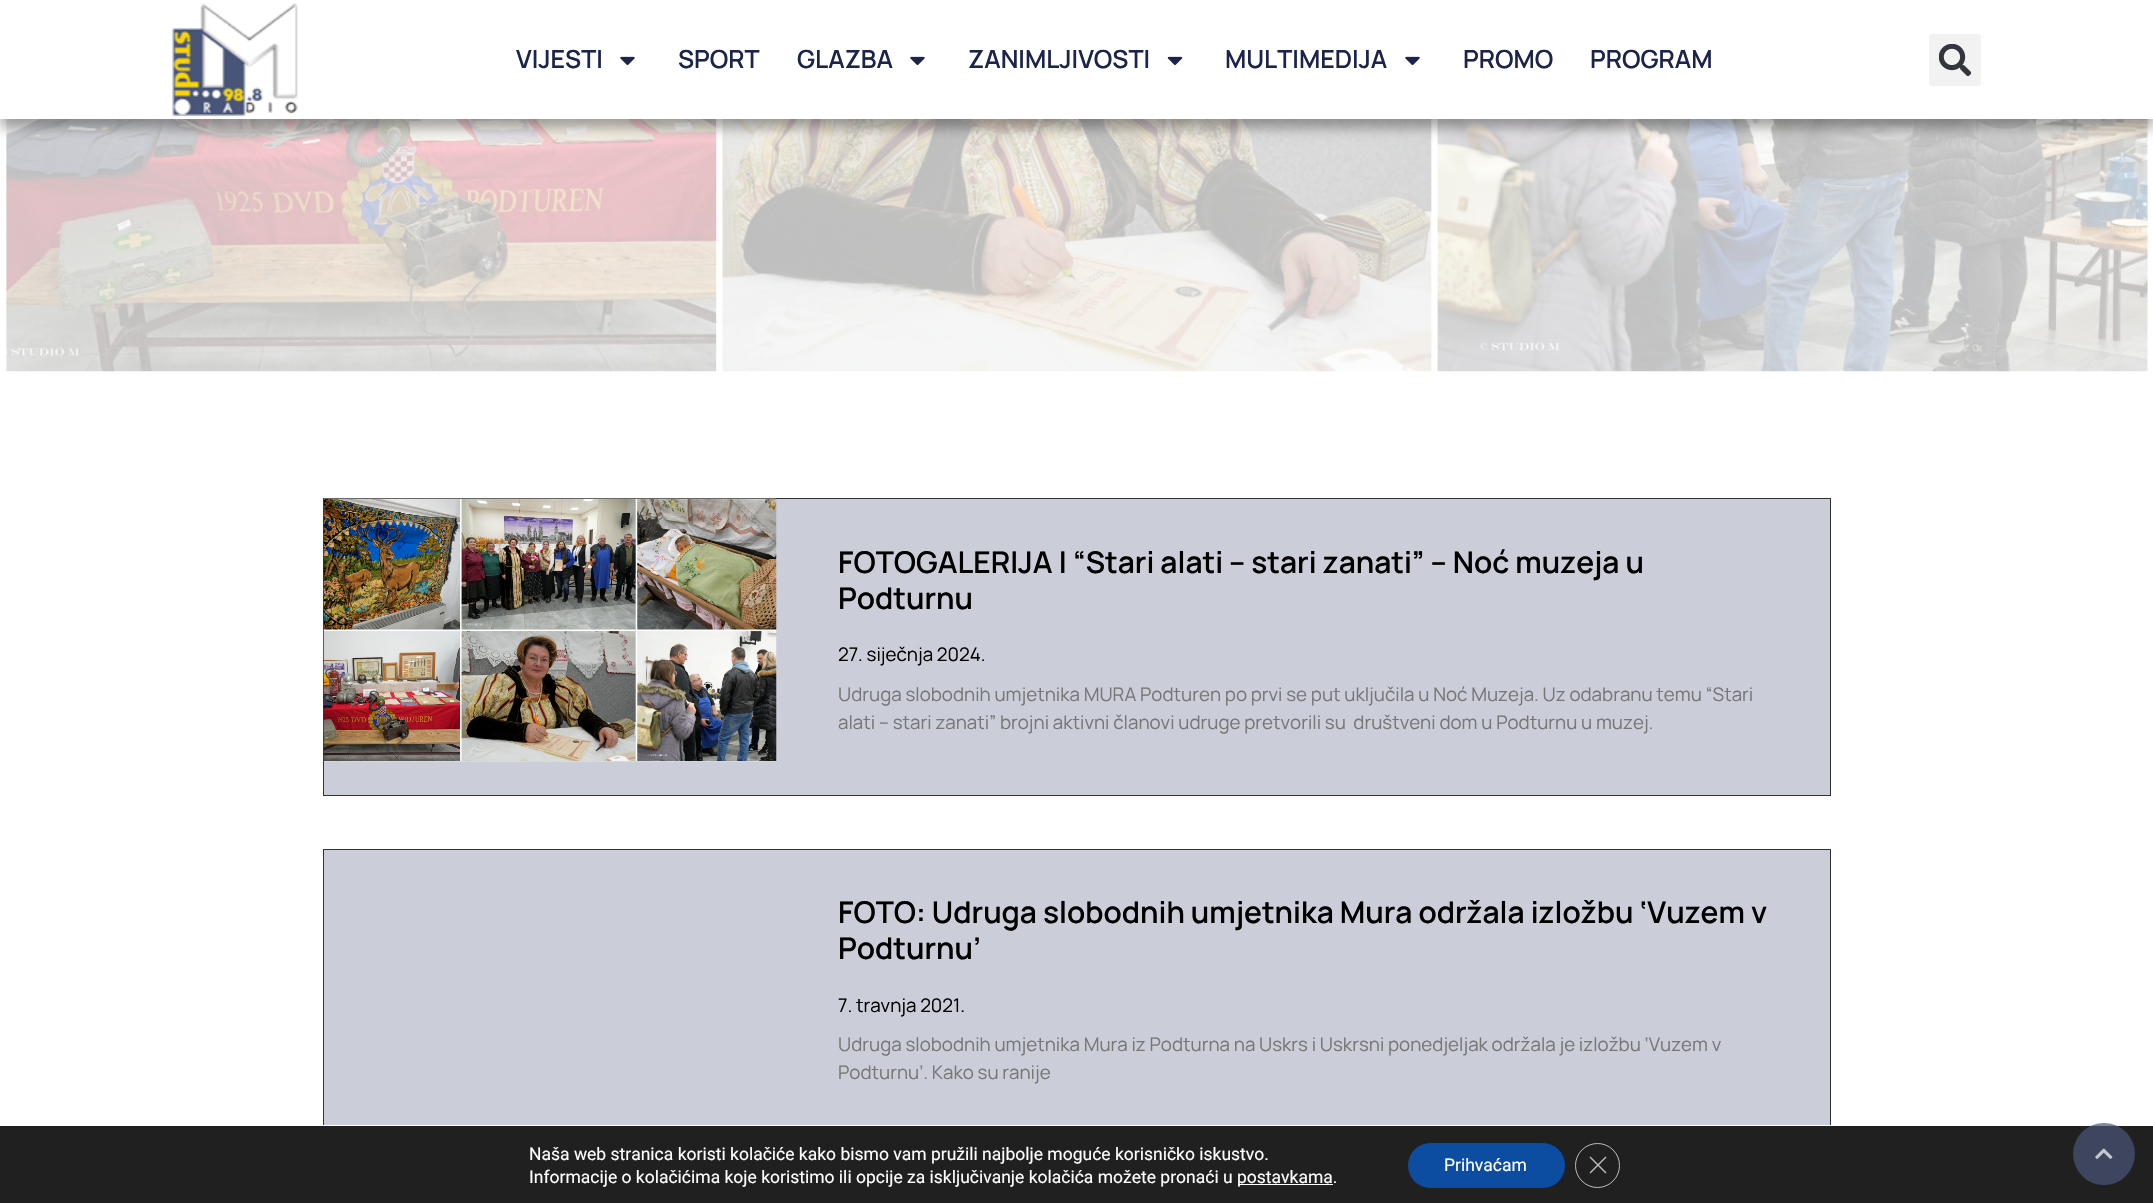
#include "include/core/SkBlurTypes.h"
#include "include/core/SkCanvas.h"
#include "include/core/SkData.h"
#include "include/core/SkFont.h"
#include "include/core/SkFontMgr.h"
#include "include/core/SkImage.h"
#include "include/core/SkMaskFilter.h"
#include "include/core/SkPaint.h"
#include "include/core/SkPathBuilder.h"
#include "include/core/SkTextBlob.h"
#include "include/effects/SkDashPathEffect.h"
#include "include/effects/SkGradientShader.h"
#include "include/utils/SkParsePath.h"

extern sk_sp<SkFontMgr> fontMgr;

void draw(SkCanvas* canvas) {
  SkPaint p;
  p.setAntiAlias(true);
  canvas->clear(SK_ColorWHITE);
  p.setColor(SkColorSetRGB(252, 253, 253));
  canvas->drawRect(SkRect::MakeLTRB(0, 377, 2153, 378), p);
  canvas->drawImageRect(SkImages::DeferredFromEncodedData(SkData::MakeFromFileName("images/5.png")), SkRect::MakeLTRB(0, 119, 2153, 378), SkSamplingOptions());
  p.setColor(SkColorSetARGB(87, 0, 0, 0));
  p.setMaskFilter(SkMaskFilter::MakeBlur(kNormal_SkBlurStyle, 6));
  canvas->drawRect(SkRect::MakeLTRB(0, 9, 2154, 128), p);
  p.setMaskFilter(nullptr);
  p.setColor(SK_ColorWHITE);
  canvas->drawRect(SkRect::MakeLTRB(0, 0, 2153, 119), p);
  canvas->drawImageRect(SkImages::DeferredFromEncodedData(SkData::MakeFromFileName("images/1.png")), SkRect::MakeLTRB(172, 3, 298, 117), SkSamplingOptions());
  canvas->drawImageRect(SkImages::DeferredFromEncodedData(SkData::MakeFromFileName("images/2.png")), SkRect::MakeLTRB(620, 56, 635, 66), SkSamplingOptions());
  canvas->drawImageRect(SkImages::DeferredFromEncodedData(SkData::MakeFromFileName("images/2.png")), SkRect::MakeLTRB(910, 56, 925, 66), SkSamplingOptions());
  canvas->drawImageRect(SkImages::DeferredFromEncodedData(SkData::MakeFromFileName("images/3.png")), SkRect::MakeLTRB(1167, 56, 1183, 66), SkSamplingOptions());
  canvas->drawImageRect(SkImages::DeferredFromEncodedData(SkData::MakeFromFileName("images/2.png")), SkRect::MakeLTRB(1405, 56, 1420, 66), SkSamplingOptions());
  p.setColor(SkColorSetRGB(242, 242, 242));
  canvas->drawRoundRect(SkRect::MakeLTRB(1929, 34, 1981, 86), 4, 4, p);
  canvas->drawImageRect(SkImages::DeferredFromEncodedData(SkData::MakeFromFileName("images/4.png")), SkRect::MakeLTRB(1939, 44, 1971, 76), SkSamplingOptions());
  p.setColor(SkColorSetRGB(203, 206, 216));
  canvas->drawRect(SkRect::MakeLTRB(323.5f, 498.5f, 1830.5f, 795.5f), p);
  p.setStyle(SkPaint::kStroke_Style);
  p.setStrokeWidth(1);
  p.setColor(SkColorSetRGB(51, 51, 51));
  canvas->drawRect(SkRect::MakeLTRB(323.5f, 498.5f, 1830.5f, 795.5f), p);
  canvas->drawImageRect(SkImages::DeferredFromEncodedData(SkData::MakeFromFileName("images/6.png")), SkRect::MakeLTRB(323, 498, 777, 762), SkSamplingOptions());
  p.setStyle(SkPaint::kFill_Style);
  p.setColor(SkColorSetRGB(203, 206, 216));
  canvas->drawRect(SkRect::MakeLTRB(324, 850, 1830, 1125), p);
  p.setStyle(SkPaint::kStroke_Style);
  p.setColor(SkColorSetRGB(51, 51, 51));
  canvas->drawRect(SkRect::MakeLTRB(323.5f, 849.5f, 1830.5f, 1145.5f), p);
  p.setStyle(SkPaint::kFill_Style);
  p.setColor(SkColorSetRGB(32, 32, 32));
  canvas->drawRect(SkRect::MakeLTRB(0, 1126, 2153, 1203), p);
  p.setColor(SK_ColorWHITE);
  canvas->drawRect(SkRect::MakeLTRB(323, 1125, 1831, 1126), p);
  canvas->drawRect(SkRect::MakeLTRB(1238, 1184, 1333, 1185), p);
  p.setColor(SkColorSetRGB(12, 77, 162));
  canvas->drawRoundRect(SkRect::MakeLTRB(1408, 1143, 1565, 1188), 22.5f, 22.5f, p);
  p.setStyle(SkPaint::kStroke_Style);
  p.setColor(SkColorSetRGB(188, 188, 188));
  canvas->drawCircle(1597.5f, 1165.5f, 22, p);
  p.setStyle(SkPaint::kFill_Style);
  canvas->drawPath(SkPathBuilder().moveTo(1605.5f, 1156.5f).lineTo(1606.5f, 1157.5f).lineTo(1590.5f, 1173.5f).lineTo(1589.5f, 1172.5f).close().detach(), p);
  canvas->drawPath(SkPathBuilder().moveTo(1589.5f, 1157.5f).lineTo(1590.5f, 1156.5f).lineTo(1606.5f, 1172.5f).lineTo(1605.5f, 1173.5f).close().detach(), p);
  p.setColor(SkColorSetARGB(179, 73, 85, 120));
  canvas->drawCircle(2104, 1154, 31, p);
  canvas->drawImageRect(SkImages::DeferredFromEncodedData(SkData::MakeFromFileName("images/7.png")), SkRect::MakeLTRB(2095, 1148, 2113, 1159), SkSamplingOptions());
  SkFont font1(fontMgr->matchFamilyStyle("Manrope", SkFontStyle(600, SkFontStyle::kNormal_Width, SkFontStyle::kUpright_Slant)), 25);
  font1.setSubpixel(true);
  p.setColor(SkColorSetRGB(28, 36, 75));
  canvas->drawString("VIJESTI", 516, 68, font1, p);
  canvas->drawString("SPORT", 678, 68, font1, p);
  canvas->drawString("GLAZBA", 797, 68, font1, p);
  canvas->drawString("ZANIMLJIVOSTI", 968, 68, font1, p);
  canvas->drawString("MULTIMEDIJA", 1225, 68, font1, p);
  canvas->drawString("PROMO", 1463, 68, font1, p);
  canvas->drawString("PROGRAM", 1590, 68, font1, p);
  SkFont font2(fontMgr->matchFamilyStyle("Manrope", SkFontStyle(600, SkFontStyle::kNormal_Width, SkFontStyle::kUpright_Slant)), 30);
  font2.setSubpixel(true);
  p.setColor(SK_ColorBLACK);
  canvas->drawString("FOTOGALERIJA | “Stari alati – stari zanati” – Noć muzeja u", 838, 573, font2, p);
  canvas->drawString("Podturnu", 838, 609, font2, p);
  SkFont font3(fontMgr->matchFamilyStyle("Manrope", SkFontStyle::Normal()), 18.75f);
  font3.setSubpixel(true);
  canvas->drawString("27. siječnja 2024.", 838, 661, font3, p);
  p.setColor(SkColorSetRGB(119, 119, 119));
  canvas->drawString("Udruga slobodnih umjetnika MURA Podturen po prvi se put uključila u Noć Muzeja. Uz odabranu temu “Stari", 838, 701, font3, p);
  canvas->drawString("alati – stari zanati” brojni aktivni članovi udruge pretvorili su  društveni dom u Podturnu u muzej.", 838, 729, font3, p);
  p.setColor(SK_ColorBLACK);
  canvas->drawString("FOTO: Udruga slobodnih umjetnika Mura održala izložbu ‘Vuzem v", 838, 923, font2, p);
  canvas->drawString("Podturnu’", 838, 959, font2, p);
  canvas->drawString("7. travnja 2021.", 838, 1012, font3, p);
  p.setColor(SkColorSetRGB(119, 119, 119));
  canvas->drawString("Udruga slobodnih umjetnika Mura iz Podturna na Uskrs i Uskrsni ponedjeljak održala je izložbu ‘Vuzem v", 838, 1051, font3, p);
  canvas->drawString("Podturnu’. Kako su ranije", 838, 1079, font3, p);
  SkFont font4(fontMgr->matchFamilyStyle("Roboto", SkFontStyle::Normal()), 17.5f);
  font4.setSubpixel(true);
  p.setColor(SK_ColorWHITE);
  canvas->drawString("Naša web stranica koristi kolačiće kako bismo vam pružili najbolje moguće korisničko iskustvo.", 529, 1160, font4, p);
  canvas->drawString("Informacije o kolačićima koje koristimo ili opcije za isključivanje kolačića možete pronaći u", 529, 1183, font4, p);
  canvas->drawString("postavkama.", 1237, 1183, font4, p);
  canvas->drawString("Prihvaćam", 1444, 1171, font4, p);
}
